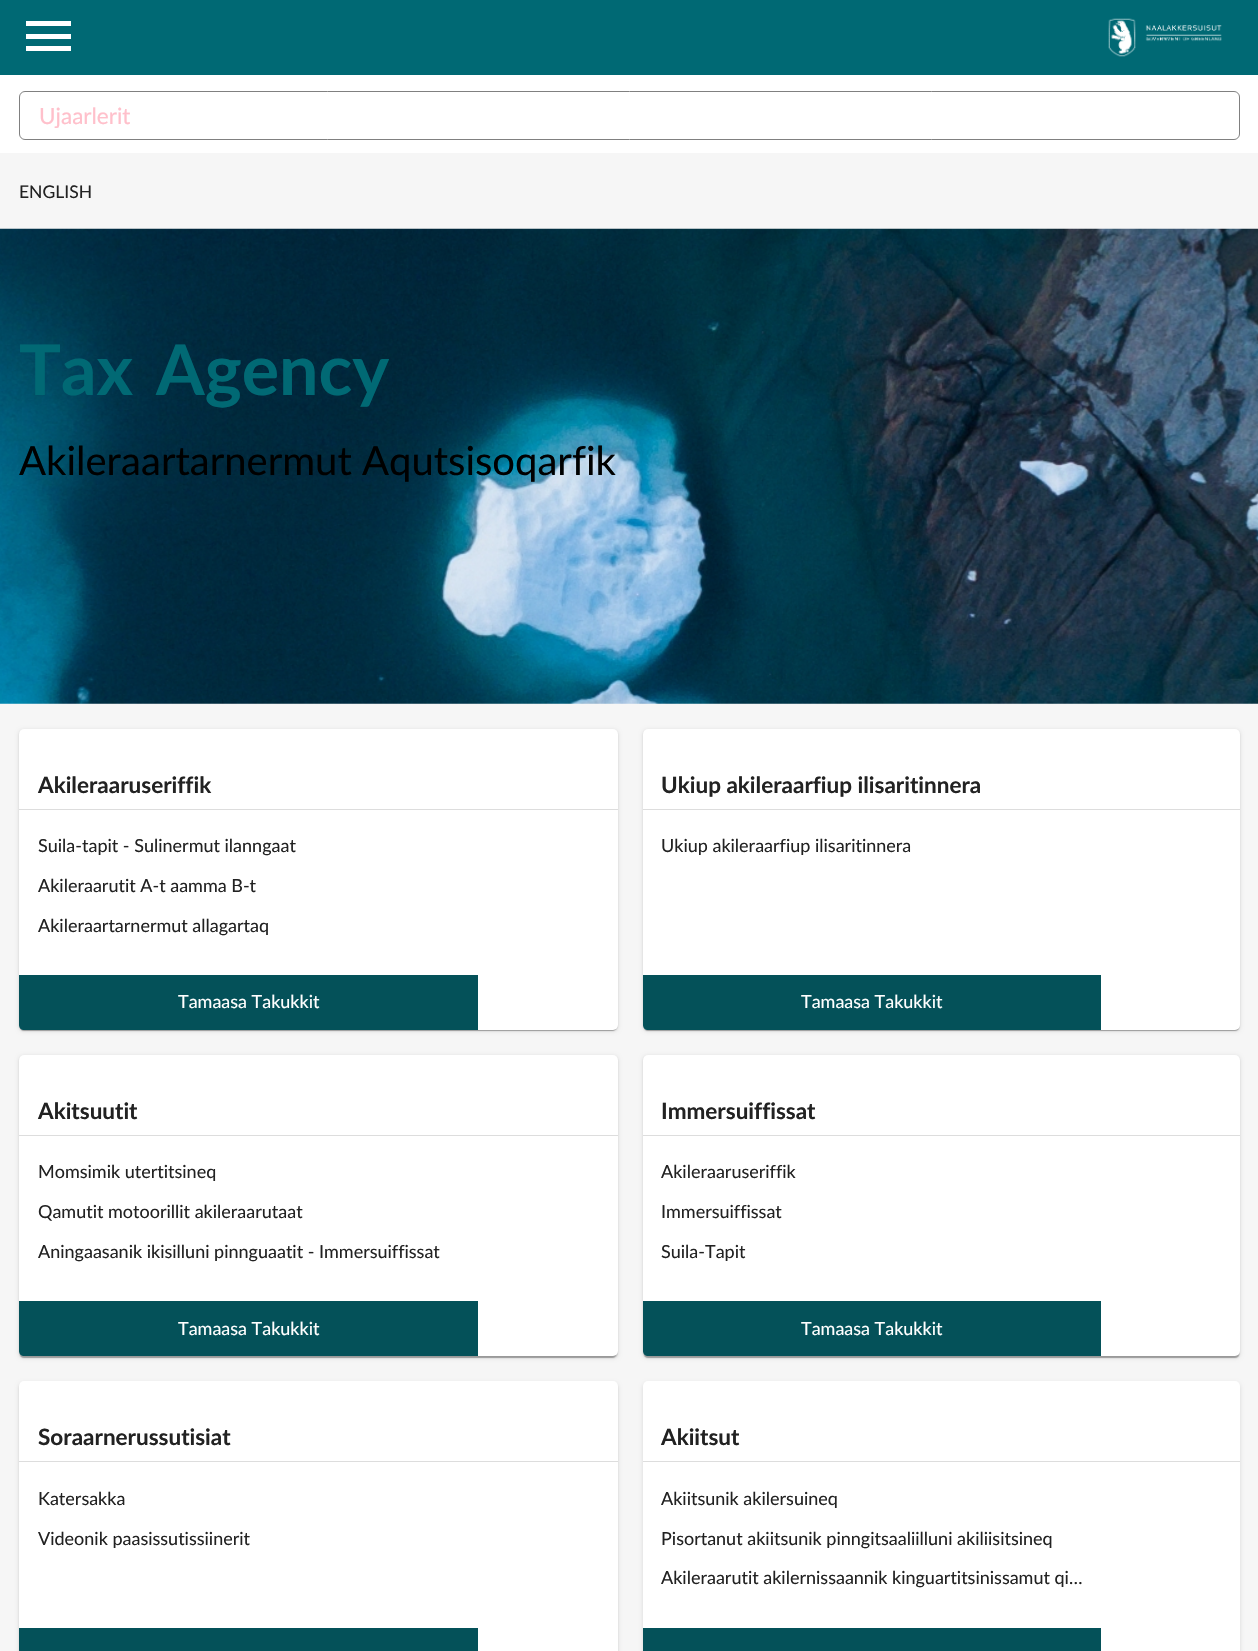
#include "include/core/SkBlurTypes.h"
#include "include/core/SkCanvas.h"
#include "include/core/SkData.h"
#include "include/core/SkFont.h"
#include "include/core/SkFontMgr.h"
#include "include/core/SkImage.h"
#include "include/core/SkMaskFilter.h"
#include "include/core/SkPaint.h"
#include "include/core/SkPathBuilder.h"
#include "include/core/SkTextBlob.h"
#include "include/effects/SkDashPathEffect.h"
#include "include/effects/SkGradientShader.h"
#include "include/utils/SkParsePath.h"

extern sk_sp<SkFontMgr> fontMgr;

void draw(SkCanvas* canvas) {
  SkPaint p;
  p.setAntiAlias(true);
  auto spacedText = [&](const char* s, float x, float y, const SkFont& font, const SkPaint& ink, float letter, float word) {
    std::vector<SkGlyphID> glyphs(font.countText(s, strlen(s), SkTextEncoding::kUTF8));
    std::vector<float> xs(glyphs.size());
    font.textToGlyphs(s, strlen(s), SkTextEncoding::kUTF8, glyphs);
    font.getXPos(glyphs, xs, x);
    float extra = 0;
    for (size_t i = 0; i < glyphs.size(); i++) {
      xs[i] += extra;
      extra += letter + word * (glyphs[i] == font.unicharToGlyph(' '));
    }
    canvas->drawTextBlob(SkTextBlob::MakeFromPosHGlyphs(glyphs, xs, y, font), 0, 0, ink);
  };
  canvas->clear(SkColorSetRGB(246, 246, 246));
  p.setColor(SkColorSetRGB(0, 105, 116));
  canvas->drawRect(SkRect::MakeLTRB(0, 0, 1258, 75), p);
  p.setColor(SK_ColorWHITE);
  canvas->drawPath(SkPathBuilder().moveTo(26, 51).lineTo(26, 46).lineTo(71, 46).lineTo(71, 51).close().moveTo(26, 39).lineTo(26, 34).lineTo(71, 34).lineTo(71, 39).close().moveTo(26, 21).lineTo(71, 21).lineTo(71, 26).lineTo(26, 26).close().detach(), p);
  canvas->drawImageRect(SkImages::DeferredFromEncodedData(SkData::MakeFromFileName("images/1.png")), SkRect::MakeLTRB(1108, 18, 1222, 57), SkSamplingOptions());
  canvas->drawRect(SkRect::MakeLTRB(0, 75, 1258, 153), p);
  p.setStyle(SkPaint::kStroke_Style);
  p.setStrokeWidth(1);
  p.setColor(SkColorSetRGB(128, 128, 128));
  canvas->drawRoundRect(SkRect::MakeLTRB(19.5f, 91.5f, 1239.5f, 139.5f), 5.5f, 5.5f, p);
  canvas->drawImageRect(SkImages::DeferredFromEncodedData(SkData::MakeFromFileName("images/2.png")), SkRect::MakeLTRB(0, 228, 1258, 704), SkSamplingOptions());
  p.setStyle(SkPaint::kFill_Style);
  p.setColor(SkColorSetARGB(31, 0, 0, 0));
  p.setMaskFilter(SkMaskFilter::MakeBlur(kNormal_SkBlurStyle, 2));
  canvas->drawRoundRect(SkRect::MakeLTRB(19, 730, 618, 1031), 5, 5, p);
  p.setMaskFilter(nullptr);
  p.setColor(SkColorSetARGB(36, 0, 0, 0));
  p.setMaskFilter(SkMaskFilter::MakeBlur(kNormal_SkBlurStyle, 0.5f));
  canvas->drawRoundRect(SkRect::MakeLTRB(19, 730, 618, 1031), 5, 5, p);
  p.setMaskFilter(nullptr);
  p.setColor(SkColorSetARGB(51, 0, 0, 0));
  p.setMaskFilter(SkMaskFilter::MakeBlur(kNormal_SkBlurStyle, 0.5f));
  canvas->drawRoundRect(SkRect::MakeLTRB(20, 733, 616, 1031), 4, 4, p);
  p.setMaskFilter(nullptr);
  p.setColor(SK_ColorWHITE);
  canvas->drawRoundRect(SkRect::MakeLTRB(19, 729, 618, 1030), 5, 5, p);
  p.setColor(SkColorSetRGB(221, 221, 221));
  canvas->drawRect(SkRect::MakeLTRB(19, 809, 618, 810), p);
  p.setColor(SkColorSetRGB(4, 81, 89));
  canvas->drawPath(SkPathBuilder().moveTo(19, 975).lineTo(478, 975).lineTo(478, 1030).lineTo(24, 1030).cubicTo(21, 1030, 19, 1028, 19, 1025).close().detach(), p);
  p.setColor(SkColorSetARGB(31, 0, 0, 0));
  p.setMaskFilter(SkMaskFilter::MakeBlur(kNormal_SkBlurStyle, 2));
  canvas->drawRoundRect(SkRect::MakeLTRB(643, 730, 1240, 1031), 5, 5, p);
  p.setMaskFilter(nullptr);
  p.setColor(SkColorSetARGB(36, 0, 0, 0));
  p.setMaskFilter(SkMaskFilter::MakeBlur(kNormal_SkBlurStyle, 0.5f));
  canvas->drawRoundRect(SkRect::MakeLTRB(643, 730, 1240, 1031), 5, 5, p);
  p.setMaskFilter(nullptr);
  p.setColor(SkColorSetARGB(51, 0, 0, 0));
  p.setMaskFilter(SkMaskFilter::MakeBlur(kNormal_SkBlurStyle, 0.5f));
  canvas->drawRoundRect(SkRect::MakeLTRB(644, 733, 1239, 1031), 4, 4, p);
  p.setMaskFilter(nullptr);
  p.setColor(SK_ColorWHITE);
  canvas->drawRoundRect(SkRect::MakeLTRB(643, 729, 1240, 1030), 5, 5, p);
  p.setColor(SkColorSetRGB(221, 221, 221));
  canvas->drawRect(SkRect::MakeLTRB(643, 809, 1240, 810), p);
  p.setColor(SkColorSetRGB(4, 81, 89));
  canvas->drawPath(SkPathBuilder().moveTo(643, 975).lineTo(1101, 975).lineTo(1101, 1030).lineTo(648, 1030).cubicTo(645, 1030, 643, 1028, 643, 1025).close().detach(), p);
  p.setColor(SkColorSetARGB(31, 0, 0, 0));
  p.setMaskFilter(SkMaskFilter::MakeBlur(kNormal_SkBlurStyle, 2));
  canvas->drawRoundRect(SkRect::MakeLTRB(19, 1056, 618, 1358), 5, 5, p);
  p.setMaskFilter(nullptr);
  p.setColor(SkColorSetARGB(36, 0, 0, 0));
  p.setMaskFilter(SkMaskFilter::MakeBlur(kNormal_SkBlurStyle, 0.5f));
  canvas->drawRoundRect(SkRect::MakeLTRB(19, 1056, 618, 1358), 5, 5, p);
  p.setMaskFilter(nullptr);
  p.setColor(SkColorSetARGB(51, 0, 0, 0));
  p.setMaskFilter(SkMaskFilter::MakeBlur(kNormal_SkBlurStyle, 0.5f));
  canvas->drawRoundRect(SkRect::MakeLTRB(20, 1059, 616, 1358), 4, 4, p);
  p.setMaskFilter(nullptr);
  p.setColor(SK_ColorWHITE);
  canvas->drawRoundRect(SkRect::MakeLTRB(19, 1055, 618, 1356), 5, 5, p);
  p.setColor(SkColorSetRGB(221, 221, 221));
  canvas->drawRect(SkRect::MakeLTRB(19, 1135, 618, 1136), p);
  p.setColor(SkColorSetRGB(4, 81, 89));
  canvas->drawPath(SkPathBuilder().moveTo(19, 1301).lineTo(478, 1301).lineTo(478, 1356).lineTo(24, 1356).cubicTo(21, 1356, 19, 1354, 19, 1351).close().detach(), p);
  p.setColor(SkColorSetARGB(31, 0, 0, 0));
  p.setMaskFilter(SkMaskFilter::MakeBlur(kNormal_SkBlurStyle, 2));
  canvas->drawRoundRect(SkRect::MakeLTRB(643, 1056, 1240, 1358), 5, 5, p);
  p.setMaskFilter(nullptr);
  p.setColor(SkColorSetARGB(36, 0, 0, 0));
  p.setMaskFilter(SkMaskFilter::MakeBlur(kNormal_SkBlurStyle, 0.5f));
  canvas->drawRoundRect(SkRect::MakeLTRB(643, 1056, 1240, 1358), 5, 5, p);
  p.setMaskFilter(nullptr);
  p.setColor(SkColorSetARGB(51, 0, 0, 0));
  p.setMaskFilter(SkMaskFilter::MakeBlur(kNormal_SkBlurStyle, 0.5f));
  canvas->drawRoundRect(SkRect::MakeLTRB(644, 1059, 1239, 1358), 4, 4, p);
  p.setMaskFilter(nullptr);
  p.setColor(SK_ColorWHITE);
  canvas->drawRoundRect(SkRect::MakeLTRB(643, 1055, 1240, 1356), 5, 5, p);
  p.setColor(SkColorSetRGB(221, 221, 221));
  canvas->drawRect(SkRect::MakeLTRB(643, 1135, 1240, 1136), p);
  p.setColor(SkColorSetRGB(4, 81, 89));
  canvas->drawPath(SkPathBuilder().moveTo(643, 1301).lineTo(1101, 1301).lineTo(1101, 1356).lineTo(648, 1356).cubicTo(645, 1356, 643, 1354, 643, 1351).close().detach(), p);
  p.setColor(SkColorSetARGB(31, 0, 0, 0));
  p.setMaskFilter(SkMaskFilter::MakeBlur(kNormal_SkBlurStyle, 2));
  canvas->drawRoundRect(SkRect::MakeLTRB(19, 1383, 618, 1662), 5, 5, p);
  p.setMaskFilter(nullptr);
  p.setColor(SkColorSetARGB(36, 0, 0, 0));
  p.setMaskFilter(SkMaskFilter::MakeBlur(kNormal_SkBlurStyle, 0.5f));
  canvas->drawRoundRect(SkRect::MakeLTRB(19, 1383, 618, 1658), 5, 5, p);
  p.setMaskFilter(nullptr);
  p.setColor(SK_ColorWHITE);
  canvas->drawRoundRect(SkRect::MakeLTRB(19, 1381, 618, 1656), 5, 5, p);
  p.setColor(SkColorSetRGB(221, 221, 221));
  canvas->drawRect(SkRect::MakeLTRB(19, 1461, 618, 1462), p);
  p.setColor(SkColorSetRGB(4, 81, 89));
  canvas->drawRect(SkRect::MakeLTRB(19, 1628, 478, 1651), p);
  p.setColor(SkColorSetARGB(31, 0, 0, 0));
  p.setMaskFilter(SkMaskFilter::MakeBlur(kNormal_SkBlurStyle, 2));
  canvas->drawRoundRect(SkRect::MakeLTRB(643, 1383, 1240, 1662), 5, 5, p);
  p.setMaskFilter(nullptr);
  p.setColor(SK_ColorWHITE);
  canvas->drawRoundRect(SkRect::MakeLTRB(643, 1381, 1240, 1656), 5, 5, p);
  p.setColor(SkColorSetRGB(221, 221, 221));
  canvas->drawRect(SkRect::MakeLTRB(643, 1461, 1240, 1462), p);
  p.setColor(SkColorSetRGB(4, 81, 89));
  canvas->drawRect(SkRect::MakeLTRB(643, 1628, 1101, 1651), p);
  SkFont font1(fontMgr->matchFamilyStyle("Lato", SkFontStyle::Normal()), 22.5f);
  font1.setSubpixel(true);
  p.setColor(SkColorSetRGB(255, 192, 203));
  canvas->drawString("Ujaarlerit", 39, 124, font1, p);
  SkFont font2(fontMgr->matchFamilyStyle("Lato", SkFontStyle::Normal()), 17.5f);
  font2.setSubpixel(true);
  p.setColor(SkColorSetRGB(34, 34, 34));
  canvas->drawString("ENGLISH", 19, 198, font2, p);
  SkFont font3(fontMgr->matchFamilyStyle("Lato", SkFontStyle::Bold()), 70);
  font3.setSubpixel(true);
  p.setColor(SkColorSetRGB(1, 105, 116));
  spacedText("Tax Agency", 19, 395, font3, p, 0, 6);
  SkFont font4(fontMgr->matchFamilyStyle("Lato", SkFontStyle::Normal()), 40);
  font4.setSubpixel(true);
  p.setColor(SK_ColorBLACK);
  canvas->drawString("Akileraartarnermut Aqutsisoqarfik", 19, 475, font4, p);
  SkFont font5(fontMgr->matchFamilyStyle("Lato", SkFontStyle::Bold()), 22.5f);
  font5.setSubpixel(true);
  p.setColor(SkColorSetRGB(34, 34, 34));
  canvas->drawString("Akileraaruseriffik", 38, 793, font5, p);
  SkFont font6(fontMgr->matchFamilyStyle("Lato", SkFontStyle::Normal()), 18);
  font6.setSubpixel(true);
  canvas->drawString("Suila-tapit - Sulinermut ilanngaat", 38, 852, font6, p);
  canvas->drawString("Akileraarutit A-t aamma B-t", 38, 892, font6, p);
  canvas->drawString("Akileraartarnermut allagartaq", 38, 932, font6, p);
  p.setColor(SK_ColorWHITE);
  canvas->drawString("Tamaasa Takukkit", 178, 1008, font6, p);
  p.setColor(SkColorSetRGB(34, 34, 34));
  canvas->drawString("Ukiup akileraarfiup ilisaritinnera", 661, 793, font5, p);
  canvas->drawString("Ukiup akileraarfiup ilisaritinnera", 661, 852, font6, p);
  p.setColor(SK_ColorWHITE);
  canvas->drawString("Tamaasa Takukkit", 801, 1008, font6, p);
  p.setColor(SkColorSetRGB(34, 34, 34));
  canvas->drawString("Akitsuutit", 38, 1119, font5, p);
  canvas->drawString("Momsimik utertitsineq", 38, 1178, font6, p);
  canvas->drawString("Qamutit motoorillit akileraarutaat", 38, 1218, font6, p);
  canvas->drawString("Aningaasanik ikisilluni pinnguaatit - Immersuiffissat", 38, 1258, font6, p);
  p.setColor(SK_ColorWHITE);
  canvas->drawString("Tamaasa Takukkit", 178, 1335, font6, p);
  p.setColor(SkColorSetRGB(34, 34, 34));
  canvas->drawString("Immersuiffissat", 661, 1119, font5, p);
  canvas->drawString("Akileraaruseriffik", 661, 1178, font6, p);
  canvas->drawString("Immersuiffissat", 661, 1218, font6, p);
  canvas->drawString("Suila-Tapit", 661, 1258, font6, p);
  p.setColor(SK_ColorWHITE);
  canvas->drawString("Tamaasa Takukkit", 801, 1335, font6, p);
  p.setColor(SkColorSetRGB(34, 34, 34));
  canvas->drawString("Soraarnerussutisiat", 38, 1445, font5, p);
  canvas->drawString("Katersakka", 38, 1505, font6, p);
  canvas->drawString("Videonik paasissutissiinerit", 38, 1545, font6, p);
  canvas->drawString("Akiitsut", 661, 1445, font5, p);
  canvas->drawString("Akiitsunik akilersuineq", 661, 1505, font6, p);
  canvas->drawString("Pisortanut akiitsunik pinngitsaaliilluni akiliisitsineq", 661, 1545, font6, p);
  canvas->drawString("Akileraarutit akilernissaannik kinguartitsinissamut qi…", 661, 1584, font6, p);
}
